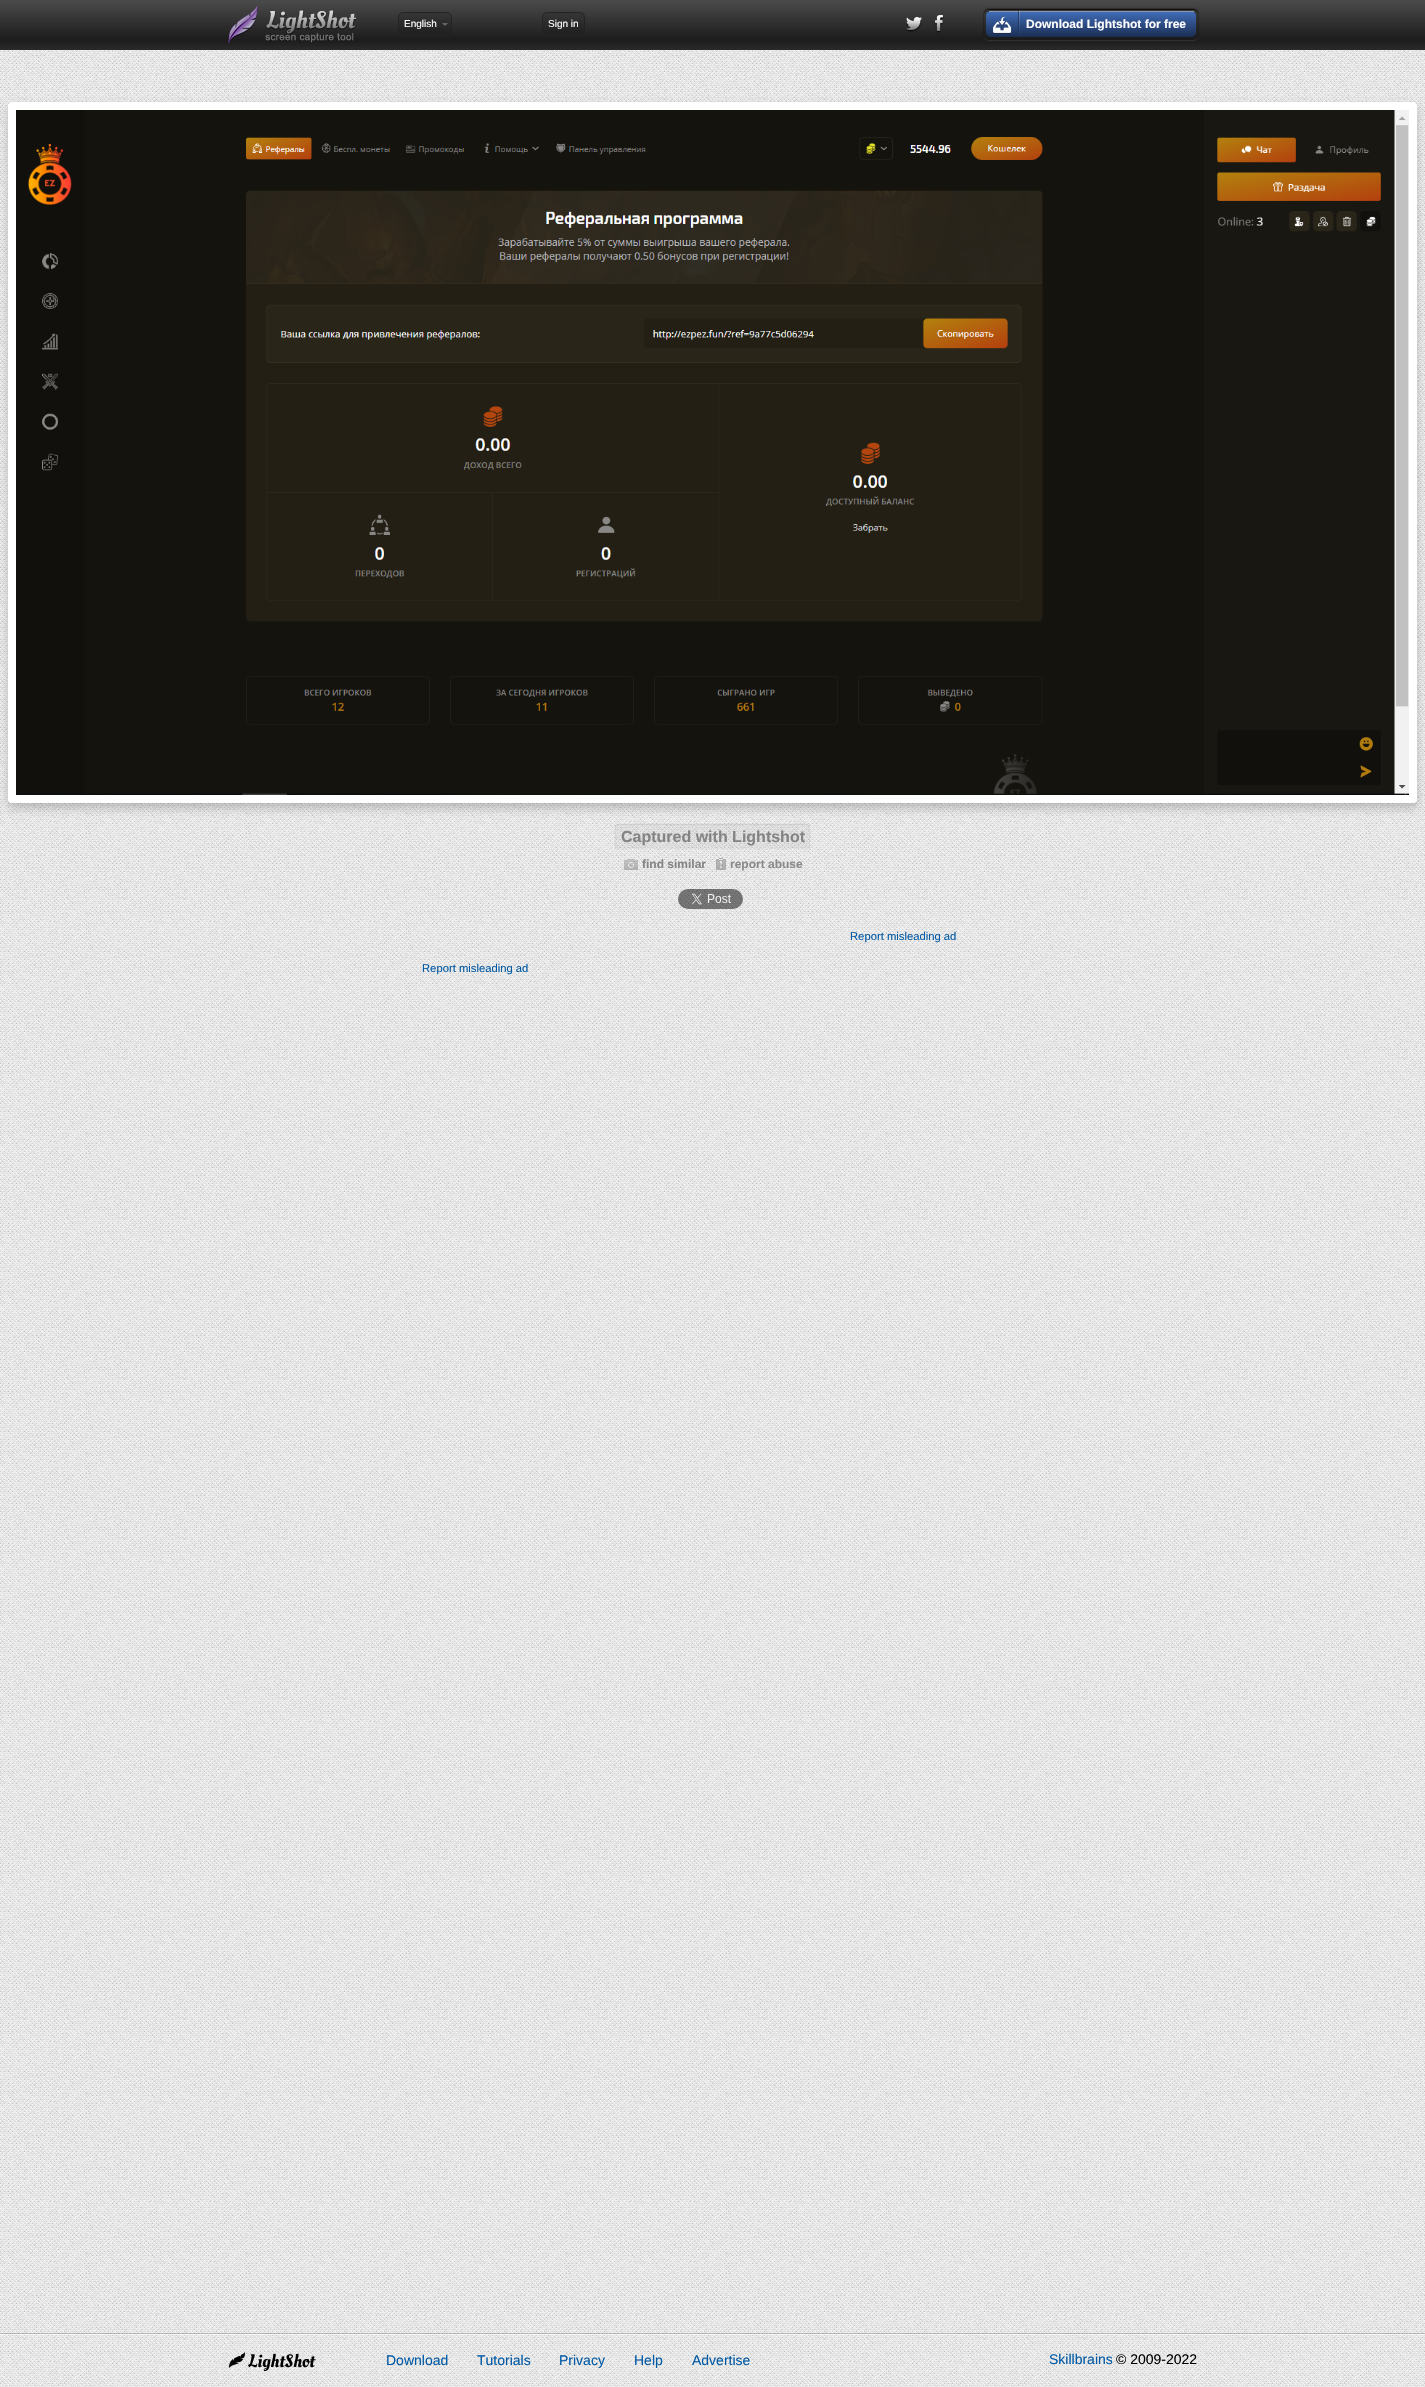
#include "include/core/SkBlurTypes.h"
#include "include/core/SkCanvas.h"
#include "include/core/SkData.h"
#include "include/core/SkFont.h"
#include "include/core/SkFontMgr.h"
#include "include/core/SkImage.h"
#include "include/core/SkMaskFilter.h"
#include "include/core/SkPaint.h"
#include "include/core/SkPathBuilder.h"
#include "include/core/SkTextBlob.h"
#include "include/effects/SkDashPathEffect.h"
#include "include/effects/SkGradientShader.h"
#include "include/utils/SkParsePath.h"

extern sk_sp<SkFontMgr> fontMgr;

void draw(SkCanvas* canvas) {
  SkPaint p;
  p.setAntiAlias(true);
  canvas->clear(SK_ColorWHITE);
  canvas->drawImageRect(SkImages::DeferredFromEncodedData(SkData::MakeFromFileName("images/1.png")), SkRect::MakeLTRB(0, 50, 1425, 2387), SkSamplingOptions());
  {
    const SkColor colors[] = {SkColorSetRGB(75, 75, 75), SkColorSetRGB(28, 28, 28), SkColorSetRGB(42, 42, 42)};
    const float stops[] = {0, 0.8f, 1};
    const SkPoint ends[] = {{713, 0}, {713, 50}};
    p.setShader(SkGradientShader::MakeLinear(ends, colors, stops, 3, SkTileMode::kClamp));
    p.setAlpha(255);
  }
  canvas->drawRect(SkRect::MakeLTRB(0, 0, 1425, 50), p);
  canvas->drawImageRect(SkImages::DeferredFromEncodedData(SkData::MakeFromFileName("images/2.png")), SkRect::MakeLTRB(228, 5, 357, 44), SkSamplingOptions());
  p.setShader(nullptr);
  p.setColor(SkColorSetARGB(26, 0, 0, 0));
  canvas->drawRoundRect(SkRect::MakeLTRB(398, 12, 452, 35), 5, 5, p);
  p.setStyle(SkPaint::kStroke_Style);
  p.setStrokeWidth(1);
  p.setColor(SkColorSetRGB(34, 34, 34));
  canvas->drawPath(SkPathBuilder().moveTo(450, 33).cubicTo(449.5f, 34, 448, 34.5f, 447, 34.5f).lineTo(403, 34.5f).cubicTo(402, 34.5f, 400.5f, 34, 400, 33).detach(), p);
  p.setColor(SkColorSetRGB(33, 33, 33));
  canvas->drawPath(SkPathBuilder().moveTo(400, 33).cubicTo(397.5f, 31, 398.5f, 26.5f, 398.5f, 23.5f).cubicTo(398.5f, 12, 398.5f, 12.5f, 410.5f, 12.5f).lineTo(439.5f, 12.5f).cubicTo(449.5f, 12.5f, 451.5f, 11.5f, 451.5f, 21.5f).cubicTo(451.5f, 24.5f, 452.5f, 30.5f, 450, 33).detach(), p);
  p.setStyle(SkPaint::kFill_Style);
  p.setColor(SkColorSetRGB(102, 102, 102));
  canvas->drawPath(SkPathBuilder().moveTo(442, 23).lineTo(448, 23).lineTo(445, 26).close().detach(), p);
  p.setColor(SkColorSetARGB(26, 0, 0, 0));
  canvas->drawRoundRect(SkRect::MakeLTRB(542, 12, 585, 35), 5, 5, p);
  p.setStyle(SkPaint::kStroke_Style);
  p.setColor(SkColorSetRGB(34, 34, 34));
  canvas->drawPath(SkPathBuilder().moveTo(583, 33).cubicTo(582.5f, 34, 581, 34.5f, 580, 34.5f).lineTo(547, 34.5f).cubicTo(546, 34.5f, 544.5f, 34, 544, 33).detach(), p);
  p.setColor(SkColorSetRGB(33, 33, 33));
  canvas->drawPath(SkPathBuilder().moveTo(544, 33).cubicTo(541.5f, 31, 542.5f, 26.5f, 542.5f, 23.5f).cubicTo(542.5f, 13.5f, 542, 12.5f, 552.5f, 12.5f).lineTo(574.5f, 12.5f).cubicTo(585, 12.5f, 584.5f, 13.5f, 584.5f, 23.5f).cubicTo(584.5f, 26.5f, 585.5f, 31, 583, 33).detach(), p);
  canvas->drawImageRect(SkImages::DeferredFromEncodedData(SkData::MakeFromFileName("images/3.png")), SkRect::MakeLTRB(906, 17, 922, 32), SkSamplingOptions());
  canvas->drawImageRect(SkImages::DeferredFromEncodedData(SkData::MakeFromFileName("images/4.png")), SkRect::MakeLTRB(934, 15, 944, 33), SkSamplingOptions());
  canvas->save();
  canvas->clipPath(SkPathBuilder(SkPathFillType::kEvenOdd).moveTo(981, 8).lineTo(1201, 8).lineTo(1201, 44).lineTo(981, 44).close().moveTo(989, 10).lineTo(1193, 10).cubicTo(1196, 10, 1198, 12, 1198, 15).lineTo(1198, 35).cubicTo(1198, 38, 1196, 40, 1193, 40).lineTo(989, 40).cubicTo(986, 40, 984, 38, 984, 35).lineTo(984, 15).cubicTo(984, 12, 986, 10, 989, 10).close().detach(), true);
  p.setStyle(SkPaint::kFill_Style);
  p.setColor(SkColorSetARGB(26, 255, 255, 255));
  p.setMaskFilter(SkMaskFilter::MakeBlur(kNormal_SkBlurStyle, 0.5f));
  canvas->drawRoundRect(SkRect::MakeLTRB(984, 11, 1198, 41), 5, 5, p);
  p.setMaskFilter(nullptr);
  canvas->restore();
  canvas->save();
  canvas->clipPath(SkPathBuilder(SkPathFillType::kEvenOdd).moveTo(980, 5).lineTo(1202, 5).lineTo(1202, 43).lineTo(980, 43).close().moveTo(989, 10).lineTo(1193, 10).cubicTo(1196, 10, 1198, 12, 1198, 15).lineTo(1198, 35).cubicTo(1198, 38, 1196, 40, 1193, 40).lineTo(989, 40).cubicTo(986, 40, 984, 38, 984, 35).lineTo(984, 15).cubicTo(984, 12, 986, 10, 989, 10).close().detach(), true);
  p.setColor(SkColorSetARGB(252, 0, 0, 0));
  p.setMaskFilter(SkMaskFilter::MakeBlur(kNormal_SkBlurStyle, 1));
  canvas->drawRoundRect(SkRect::MakeLTRB(984, 9, 1198, 39), 5, 5, p);
  p.setMaskFilter(nullptr);
  canvas->restore();
  p.setColor(SkColorSetARGB(28, 0, 0, 0));
  canvas->drawRoundRect(SkRect::MakeLTRB(984, 10, 1198, 40), 5, 5, p);
  canvas->save();
  canvas->clipPath(SkPathBuilder().moveTo(991, 11).lineTo(1191, 11).cubicTo(1194, 11, 1196, 13, 1196, 16).lineTo(1196, 32).cubicTo(1196, 35, 1194, 37, 1191, 37).lineTo(991, 37).cubicTo(988, 37, 986, 35, 986, 32).lineTo(986, 16).cubicTo(986, 13, 988, 11, 991, 11).close().detach(), true);
  {
    const SkColor colors[] = {SkColorSetRGB(64, 108, 182), SkColorSetRGB(27, 45, 84)};
    const float stops[] = {0, 1};
    const SkPoint ends[] = {{1091, -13}, {1091, 12}};
    p.setShader(SkGradientShader::MakeLinear(ends, colors, stops, 2, SkTileMode::kClamp));
    p.setAlpha(255);
  }
  canvas->drawRect(SkRect::MakeLTRB(986, 11, 1196, 12), p);
  {
    const SkColor colors[] = {SkColorSetARGB(250, 64, 109, 184), SkColorSetARGB(250, 26, 45, 84)};
    const float stops[] = {0, 1};
    const SkPoint ends[] = {{1091, 12}, {1091, 37}};
    p.setShader(SkGradientShader::MakeLinear(ends, colors, stops, 2, SkTileMode::kClamp));
    p.setAlpha(255);
  }
  canvas->drawPath(SkPathBuilder().moveTo(986, 12).lineTo(1196, 12).lineTo(1196, 32).cubicTo(1196, 35, 1194, 37, 1191, 37).lineTo(991, 37).cubicTo(988, 37, 986, 35, 986, 32).close().detach(), p);
  canvas->restore();
  p.setShader(nullptr);
  p.setColor(SkColorSetARGB(128, 251, 251, 251));
  canvas->drawRect(SkRect::MakeLTRB(989, 11, 1194, 12), p);
  canvas->drawImageRect(SkImages::DeferredFromEncodedData(SkData::MakeFromFileName("images/5.png")), SkRect::MakeLTRB(993, 16, 1012, 34), SkSamplingOptions());
  canvas->drawImageRect(SkImages::DeferredFromEncodedData(SkData::MakeFromFileName("images/6.png")), SkRect::MakeLTRB(1018, 11, 1020, 37), SkSamplingOptions());
  p.setColor(SkColorSetARGB(51, 0, 0, 0));
  p.setMaskFilter(SkMaskFilter::MakeBlur(kNormal_SkBlurStyle, 5));
  canvas->drawRoundRect(SkRect::MakeLTRB(8, 107, 1417, 808), 4, 4, p);
  p.setMaskFilter(nullptr);
  p.setColor(SK_ColorWHITE);
  canvas->drawRoundRect(SkRect::MakeLTRB(8, 102, 1417, 803), 4, 4, p);
  canvas->drawImageRect(SkImages::DeferredFromEncodedData(SkData::MakeFromFileName("images/7.png")), SkRect::MakeLTRB(16, 110, 1409, 795), SkSamplingOptions());
  canvas->save();
  canvas->clipPath(SkPathBuilder(SkPathFillType::kEvenOdd).moveTo(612, 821).lineTo(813, 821).lineTo(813, 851).lineTo(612, 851).close().moveTo(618, 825).lineTo(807, 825).cubicTo(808.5f, 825, 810, 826.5f, 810, 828).lineTo(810, 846).cubicTo(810, 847.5f, 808.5f, 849, 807, 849).lineTo(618, 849).cubicTo(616.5f, 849, 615, 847.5f, 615, 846).lineTo(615, 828).cubicTo(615, 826.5f, 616.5f, 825, 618, 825).close().detach(), true);
  p.setColor(SkColorSetARGB(31, 0, 0, 0));
  p.setMaskFilter(SkMaskFilter::MakeBlur(kNormal_SkBlurStyle, 0.5f));
  canvas->drawRoundRect(SkRect::MakeLTRB(615, 824, 810, 848), 3, 3, p);
  p.setMaskFilter(nullptr);
  canvas->restore();
  p.setColor(SkColorSetARGB(10, 0, 0, 0));
  canvas->drawRect(SkRect::MakeLTRB(615, 825, 810, 849), p);
  canvas->drawRect(SkRect::MakeLTRB(809, 827, 810, 848), p);
  canvas->drawRect(SkRect::MakeLTRB(615, 827, 616, 848), p);
  canvas->drawImageRect(SkImages::DeferredFromEncodedData(SkData::MakeFromFileName("images/8.png")), SkRect::MakeLTRB(624, 859, 638, 870), SkSamplingOptions());
  canvas->drawImageRect(SkImages::DeferredFromEncodedData(SkData::MakeFromFileName("images/9.png")), SkRect::MakeLTRB(716, 858, 726, 870), SkSamplingOptions());
  canvas->drawImageRect(SkImages::DeferredFromEncodedData(SkData::MakeFromFileName("images/10.png")), SkRect::MakeLTRB(678, 889, 743, 909), SkSamplingOptions());
  p.setColor(SkColorSetARGB(51, 0, 0, 0));
  canvas->drawRect(SkRect::MakeLTRB(0, 2333, 1425, 2334), p);
  p.setColor(SkColorSetARGB(153, 255, 255, 255));
  canvas->drawRect(SkRect::MakeLTRB(0, 2334, 1425, 2335), p);
  canvas->drawImageRect(SkImages::DeferredFromEncodedData(SkData::MakeFromFileName("images/11.png")), SkRect::MakeLTRB(229, 2352, 316, 2371), SkSamplingOptions());
  SkFont font1(fontMgr->matchFamilyStyle("Liberation Sans", SkFontStyle::Normal()), 10);
  font1.setSubpixel(true);
  p.setColor(SK_ColorWHITE);
  canvas->drawString("English", 404, 27, font1, p);
  canvas->drawString("Sign in", 548, 27, font1, p);
  SkFont font2(fontMgr->matchFamilyStyle("Liberation Sans", SkFontStyle::Bold()), 12);
  font2.setSubpixel(true);
  canvas->drawString("Download Lightshot for free", 1026, 28, font2, p);
  SkFont font3(fontMgr->matchFamilyStyle("Liberation Sans", SkFontStyle::Bold()), 16);
  font3.setSubpixel(true);
  p.setColor(SkColorSetRGB(132, 132, 132));
  canvas->drawString("Captured with Lightshot", 621, 842, font3, p);
  canvas->drawString("find similar", 642, 868, font2, p);
  p.setColor(SkColorSetRGB(138, 138, 138));
  canvas->drawString("report abuse", 730, 868, font2, p);
  SkFont font4(fontMgr->matchFamilyStyle("Liberation Sans", SkFontStyle::Normal()), 11.25f);
  font4.setSubpixel(true);
  p.setColor(SkColorSetRGB(0, 89, 165));
  canvas->drawString("Report misleading ad", 850, 940, font4, p);
  canvas->drawString("Report misleading ad", 422, 972, font4, p);
  SkFont font5(fontMgr->matchFamilyStyle("Liberation Sans", SkFontStyle::Normal()), 14);
  font5.setSubpixel(true);
  canvas->drawString("Download", 386, 2365, font5, p);
  canvas->drawString("Tutorials", 477, 2365, font5, p);
  canvas->drawString("Privacy", 559, 2365, font5, p);
  canvas->drawString("Help", 634, 2365, font5, p);
  canvas->drawString("Advertise", 692, 2365, font5, p);
  canvas->drawString("Skillbrains", 1049, 2364, font5, p);
  p.setColor(SK_ColorBLACK);
  canvas->drawString("© 2009-2022", 1116, 2364, font5, p);
}
